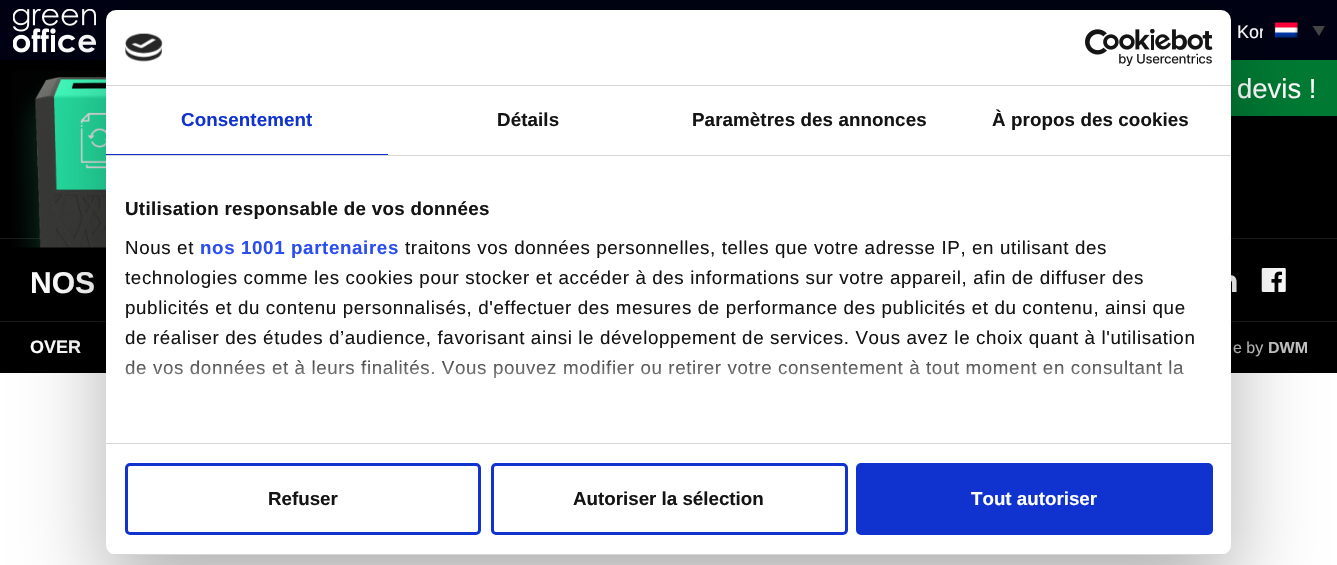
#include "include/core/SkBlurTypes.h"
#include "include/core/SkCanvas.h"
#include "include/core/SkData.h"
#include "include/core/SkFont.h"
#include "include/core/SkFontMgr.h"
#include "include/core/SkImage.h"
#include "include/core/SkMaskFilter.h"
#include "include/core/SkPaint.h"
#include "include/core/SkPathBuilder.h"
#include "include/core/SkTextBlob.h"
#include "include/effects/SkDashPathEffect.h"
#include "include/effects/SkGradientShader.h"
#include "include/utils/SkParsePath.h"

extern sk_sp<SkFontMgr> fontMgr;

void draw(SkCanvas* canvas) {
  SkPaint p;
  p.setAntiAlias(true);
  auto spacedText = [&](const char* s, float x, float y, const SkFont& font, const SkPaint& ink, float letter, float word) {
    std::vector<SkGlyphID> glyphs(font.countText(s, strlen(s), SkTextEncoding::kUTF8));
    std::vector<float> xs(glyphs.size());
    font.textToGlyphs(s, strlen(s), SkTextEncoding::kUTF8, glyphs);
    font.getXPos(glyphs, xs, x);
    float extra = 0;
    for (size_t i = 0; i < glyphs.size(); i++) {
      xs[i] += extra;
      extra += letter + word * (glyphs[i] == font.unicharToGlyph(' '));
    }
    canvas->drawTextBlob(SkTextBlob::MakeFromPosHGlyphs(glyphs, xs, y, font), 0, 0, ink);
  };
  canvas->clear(SK_ColorWHITE);
  p.setColor(SkColorSetRGB(0, 1, 18));
  canvas->drawRect(SkRect::MakeLTRB(0, 0, 1263, 60), p);
  canvas->drawImageRect(SkImages::DeferredFromEncodedData(SkData::MakeFromFileName("images/1.png")), SkRect::MakeLTRB(13, 9, 96, 53), SkSamplingOptions());
  p.setColor(SK_ColorBLACK);
  canvas->drawRect(SkRect::MakeLTRB(0, 60, 1337, 373), p);
  p.setColor(SkColorSetRGB(0, 122, 51));
  canvas->drawRect(SkRect::MakeLTRB(1231, 60, 1337, 116), p);
  p.setColor(SkColorSetRGB(26, 26, 26));
  canvas->drawRect(SkRect::MakeLTRB(0, 238, 1337, 239), p);
  canvas->drawImageRect(SkImages::DeferredFromEncodedData(SkData::MakeFromFileName("images/3.png")), SkRect::MakeLTRB(12, 71, 106, 248), SkSamplingOptions());
  canvas->drawRect(SkRect::MakeLTRB(0, 321, 1337, 322), p);
  canvas->drawImageRect(SkImages::DeferredFromEncodedData(SkData::MakeFromFileName("images/4.png")), SkRect::MakeLTRB(1231, 275, 1237, 292), SkSamplingOptions());
  canvas->drawImageRect(SkImages::DeferredFromEncodedData(SkData::MakeFromFileName("images/5.png")), SkRect::MakeLTRB(1261, 268, 1286, 292), SkSamplingOptions());
  SkFont font1(fontMgr->matchFamilyStyle("Liberation Sans", SkFontStyle::Normal()), 18);
  font1.setSubpixel(true);
  p.setColor(SK_ColorWHITE);
  canvas->drawString("Kor", 1237, 38, font1, p);
  p.setColor(SkColorSetRGB(0, 1, 18));
  canvas->drawRect(SkRect::MakeLTRB(1263, 0, 1337, 60), p);
  canvas->drawImageRect(SkImages::DeferredFromEncodedData(SkData::MakeFromFileName("images/2.png")), SkRect::MakeLTRB(1274, 22, 1298, 38), SkSamplingOptions());
  p.setColor(SkColorSetRGB(68, 68, 68));
  canvas->drawPath(SkPathBuilder().moveTo(1312.5f, 26).lineTo(1325, 26).lineTo(1319, 36).close().detach(), p);
  SkFont font2(fontMgr->matchFamilyStyle("Liberation Sans", SkFontStyle::Normal()), 27.5f);
  font2.setSubpixel(true);
  p.setColor(SK_ColorWHITE);
  canvas->drawString("devis !", 1237, 98, font2, p);
  SkFont font3(fontMgr->matchFamilyStyle("Liberation Sans", SkFontStyle::Bold()), 30);
  font3.setSubpixel(true);
  canvas->drawString("NOS", 30, 293, font3, p);
  SkFont font4(fontMgr->matchFamilyStyle("Liberation Sans", SkFontStyle::Bold()), 18);
  font4.setSubpixel(true);
  canvas->drawString("OVER", 30, 353, font4, p);
  SkFont font5(fontMgr->matchFamilyStyle("Liberation Sans", SkFontStyle::Normal()), 16);
  font5.setSubpixel(true);
  p.setColor(SkColorSetRGB(195, 195, 195));
  canvas->drawString("e by", 1233, 353, font5, p);
  SkFont font6(fontMgr->matchFamilyStyle("Liberation Sans", SkFontStyle::Bold()), 16);
  font6.setSubpixel(true);
  canvas->drawString("DWM", 1268, 353, font6, p);
  p.setColor(SkColorSetARGB(77, 0, 0, 0));
  p.setMaskFilter(SkMaskFilter::MakeBlur(kNormal_SkBlurStyle, 42.5f));
  canvas->drawRoundRect(SkRect::MakeLTRB(106, 50, 1231, 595), 10, 10, p);
  p.setMaskFilter(nullptr);
  p.setColor(SK_ColorWHITE);
  canvas->drawRoundRect(SkRect::MakeLTRB(106, 10, 1231, 555), 10, 10, p);
  p.setColor(SkColorSetRGB(214, 214, 214));
  canvas->drawRect(SkRect::MakeLTRB(106, 85, 1231, 86), p);
  canvas->drawImageRect(SkImages::DeferredFromEncodedData(SkData::MakeFromFileName("images/6.png")), SkRect::MakeLTRB(125, 33, 163, 62), SkSamplingOptions());
  canvas->drawImageRect(SkImages::DeferredFromEncodedData(SkData::MakeFromFileName("images/7.png")), SkRect::MakeLTRB(1085, 29, 1213, 66), SkSamplingOptions());
  canvas->drawRect(SkRect::MakeLTRB(106, 155, 1231, 156), p);
  p.setColor(SkColorSetRGB(16, 50, 207));
  canvas->drawRect(SkRect::MakeLTRB(106, 154, 388, 155), p);
  SkFont font7(fontMgr->matchFamilyStyle("Liberation Sans", SkFontStyle::Bold()), 18.75f);
  font7.setSubpixel(true);
  spacedText("Consentement", 181, 126, font7, p, 0.1f, 0);
  p.setColor(SkColorSetRGB(20, 20, 20));
  spacedText("Détails", 497, 126, font7, p, 0.1f, 0);
  spacedText("Paramètres des annonces", 692, 126, font7, p, 0.1f, 0);
  spacedText("À propos des cookies", 992, 126, font7, p, 0.1f, 0);
  p.setColor(SkColorSetRGB(214, 214, 214));
  canvas->drawRect(SkRect::MakeLTRB(106, 443, 1231, 444), p);
  p.setColor(SkColorSetRGB(20, 20, 20));
  spacedText("Utilisation responsable de vos données", 125, 215, font7, p, 0.3f, 0);
  SkFont font8(fontMgr->matchFamilyStyle("Liberation Sans", SkFontStyle::Normal()), 18.75f);
  font8.setSubpixel(true);
  spacedText("Nous et", 125, 254, font8, p, 0.62f, 0);
  p.setColor(SkColorSetRGB(42, 78, 239));
  spacedText("nos 1001 partenaires", 200, 254, font7, p, 0.62f, 0);
  p.setColor(SkColorSetRGB(20, 20, 20));
  spacedText("traitons vos données personnelles, telles que votre adresse IP, en utilisant des", 405, 254, font8, p, 0.62f, 0);
  spacedText("technologies comme les cookies pour stocker et accéder à des informations sur votre appareil, afin de diffuser des", 125, 284, font8, p, 0.62f, 0);
  spacedText("publicités et du contenu personnalisés, d'effectuer des mesures de performance des publicités et du contenu, ainsi que", 125, 314, font8, p, 0.62f, 0);
  spacedText("de réaliser des études d’audience, favorisant ainsi le développement de services. Vous avez le choix quant à l'utilisation", 125, 344, font8, p, 0.62f, 0);
  spacedText("de vos données et à leurs finalités. Vous pouvez modifier ou retirer votre consentement à tout moment en consultant la", 125, 374, font8, p, 0.62f, 0);
  {
    const SkColor colors[] = {SK_ColorWHITE, SkColorSetARGB(204, 255, 255, 255), SkColorSetARGB(0, 255, 255, 255)};
    const float stops[] = {0, 0.5f, 1};
    const SkPoint ends[] = {{661, 443}, {661, 349}};
    p.setShader(SkGradientShader::MakeLinear(ends, colors, stops, 3, SkTileMode::kClamp));
    p.setAlpha(255);
  }
  canvas->drawRect(SkRect::MakeLTRB(125, 360, 1185, 378), p);
  canvas->save();
  canvas->clipPath(SkPathBuilder().moveTo(116, 10).lineTo(1221, 10).cubicTo(1226.5f, 10, 1231, 14.5f, 1231, 20).lineTo(1231, 545).cubicTo(1231, 550.5f, 1226.5f, 555, 1221, 555).lineTo(116, 555).cubicTo(110.5f, 555, 106, 550.5f, 106, 545).lineTo(106, 20).cubicTo(106, 14.5f, 110.5f, 10, 116, 10).close().detach(), true);
  p.setShader(nullptr);
  p.setColor(SkColorSetRGB(214, 214, 214));
  canvas->drawRect(SkRect::MakeLTRB(106, 554, 1231, 555), p);
  canvas->restore();
  p.setStyle(SkPaint::kStroke_Style);
  p.setStrokeWidth(3);
  p.setColor(SkColorSetRGB(16, 50, 207));
  canvas->drawRoundRect(SkRect::MakeLTRB(126.5f, 464.5f, 479.5f, 533.5f), 3.5f, 3.5f, p);
  p.setStyle(SkPaint::kFill_Style);
  p.setColor(SkColorSetRGB(20, 20, 20));
  canvas->drawString("Refuser", 268, 505, font7, p);
  p.setStyle(SkPaint::kStroke_Style);
  p.setColor(SkColorSetRGB(16, 50, 207));
  canvas->drawRoundRect(SkRect::MakeLTRB(492.5f, 464.5f, 846.5f, 533.5f), 3.5f, 3.5f, p);
  p.setStyle(SkPaint::kFill_Style);
  p.setColor(SkColorSetRGB(20, 20, 20));
  canvas->drawString("Autoriser la sélection", 573, 505, font7, p);
  p.setColor(SkColorSetRGB(16, 50, 207));
  canvas->drawRoundRect(SkRect::MakeLTRB(857.5f, 464.5f, 1211.5f, 533.5f), 3.5f, 3.5f, p);
  p.setStyle(SkPaint::kStroke_Style);
  canvas->drawRoundRect(SkRect::MakeLTRB(857.5f, 464.5f, 1211.5f, 533.5f), 3.5f, 3.5f, p);
  p.setStyle(SkPaint::kFill_Style);
  p.setColor(SK_ColorWHITE);
  canvas->drawString("Tout autoriser", 971, 505, font7, p);
}
